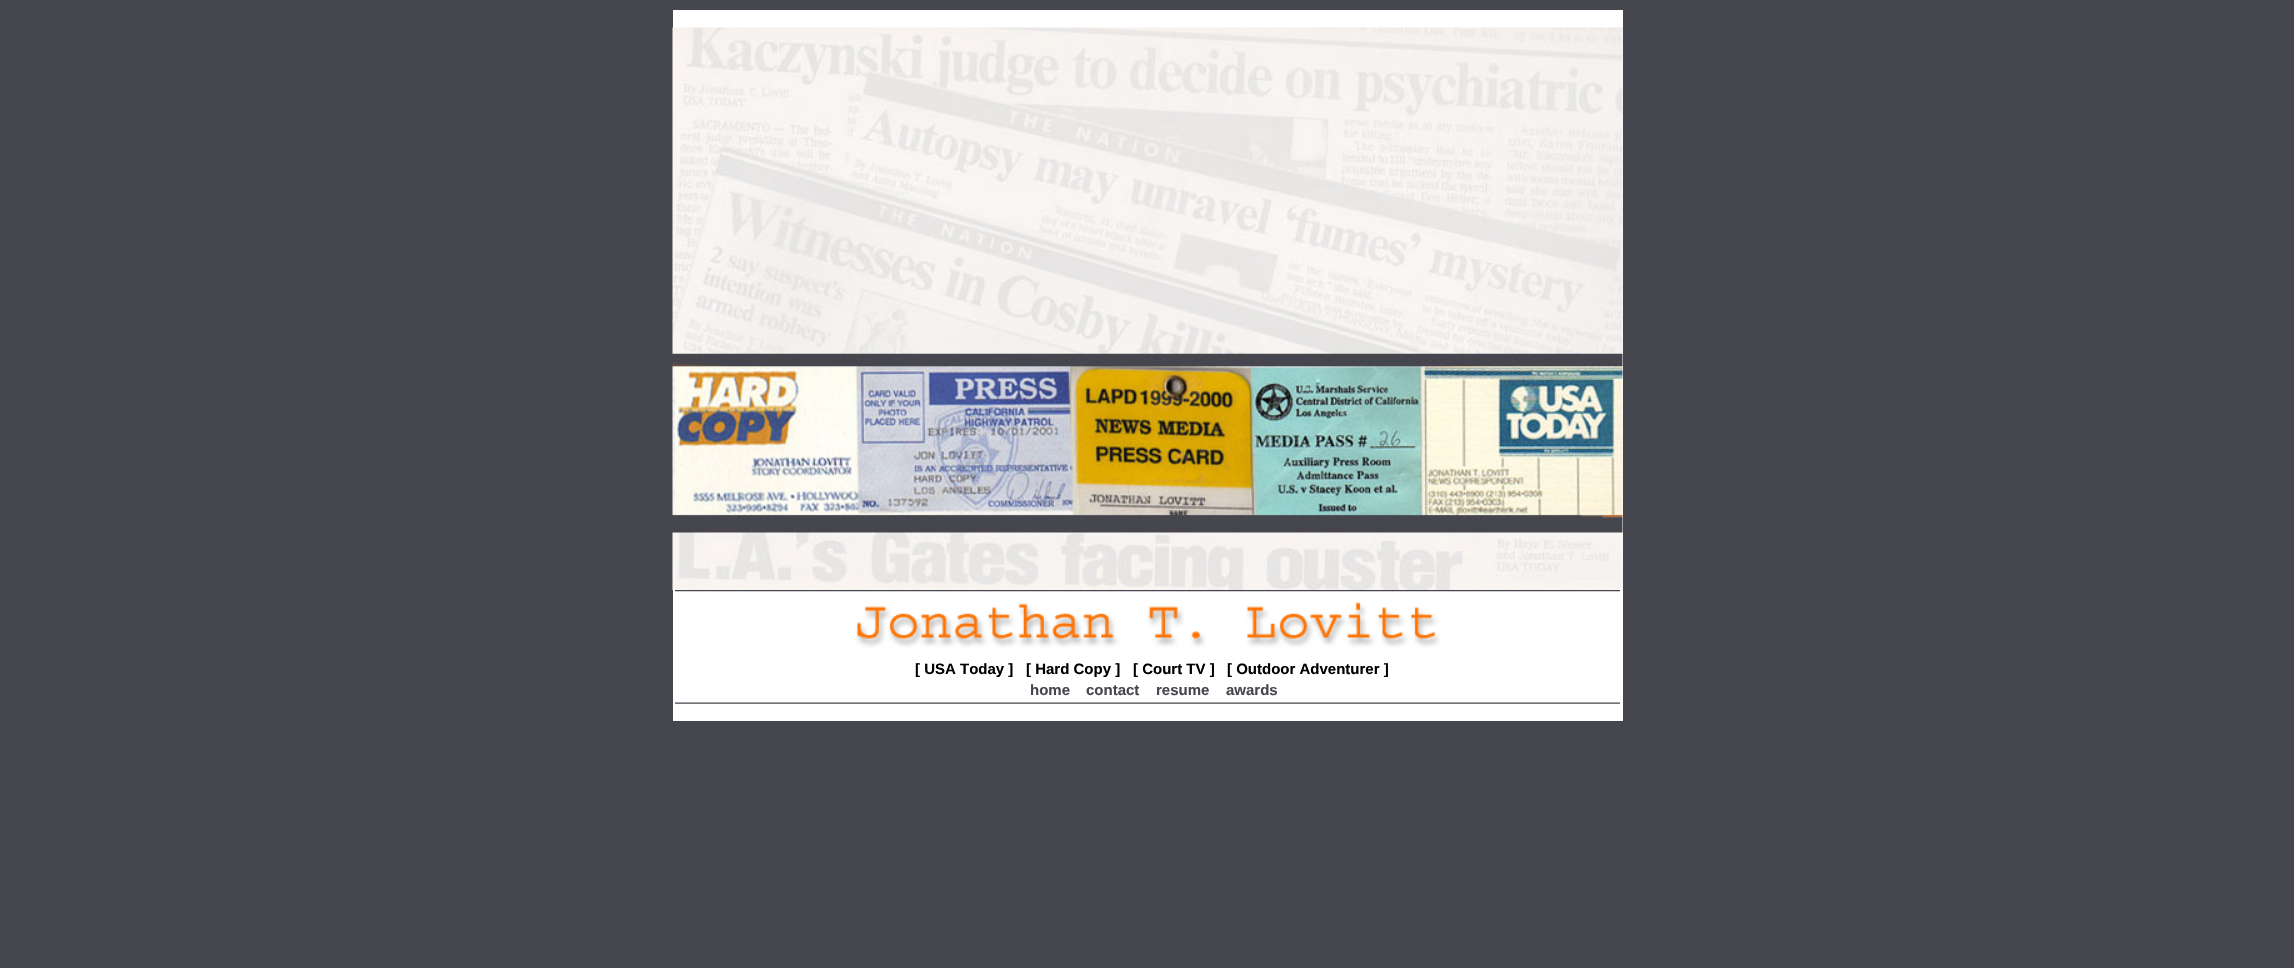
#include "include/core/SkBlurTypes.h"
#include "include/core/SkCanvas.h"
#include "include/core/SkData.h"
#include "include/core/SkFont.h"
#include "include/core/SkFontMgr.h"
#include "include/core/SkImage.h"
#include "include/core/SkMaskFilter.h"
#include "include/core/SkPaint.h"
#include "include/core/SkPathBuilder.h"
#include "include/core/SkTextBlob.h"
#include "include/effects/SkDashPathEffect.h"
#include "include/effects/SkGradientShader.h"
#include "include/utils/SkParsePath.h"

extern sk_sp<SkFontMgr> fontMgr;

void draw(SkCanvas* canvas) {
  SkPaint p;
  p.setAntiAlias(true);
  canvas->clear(SkColorSetRGB(70, 70, 78));
  p.setColor(SK_ColorWHITE);
  canvas->drawRect(SkRect::MakeLTRB(673, 10, 1623, 721), p);
  canvas->drawImageRect(SkImages::DeferredFromEncodedData(SkData::MakeFromFileName("images/1.png")), SkRect::MakeLTRB(672, 27, 1623, 590), SkSamplingOptions());
  canvas->drawImageRect(SkImages::DeferredFromEncodedData(SkData::MakeFromFileName("images/2.png")), SkRect::MakeLTRB(675, 590, 1620, 592), SkSamplingOptions());
  canvas->drawImageRect(SkImages::DeferredFromEncodedData(SkData::MakeFromFileName("images/3.png")), SkRect::MakeLTRB(856, 602, 1441, 648), SkSamplingOptions());
  canvas->drawImageRect(SkImages::DeferredFromEncodedData(SkData::MakeFromFileName("images/4.png")), SkRect::MakeLTRB(675, 702, 1620, 704), SkSamplingOptions());
  SkFont font1(fontMgr->matchFamilyStyle("Liberation Sans", SkFontStyle::Bold()), 15);
  font1.setSubpixel(true);
  p.setColor(SK_ColorBLACK);
  canvas->drawString("[ USA Today ]", 915, 674, font1, p);
  canvas->drawString("[ Hard Copy ]", 1026, 674, font1, p);
  canvas->drawString("[ Court TV ]", 1133, 674, font1, p);
  canvas->drawString("[ Outdoor Adventurer ]", 1227, 674, font1, p);
  p.setColor(SkColorSetRGB(69, 70, 78));
  canvas->drawString("home", 1030, 695, font1, p);
  canvas->drawString("contact", 1086, 695, font1, p);
  canvas->drawString("resume", 1156, 695, font1, p);
  canvas->drawString("awards", 1226, 695, font1, p);
}
